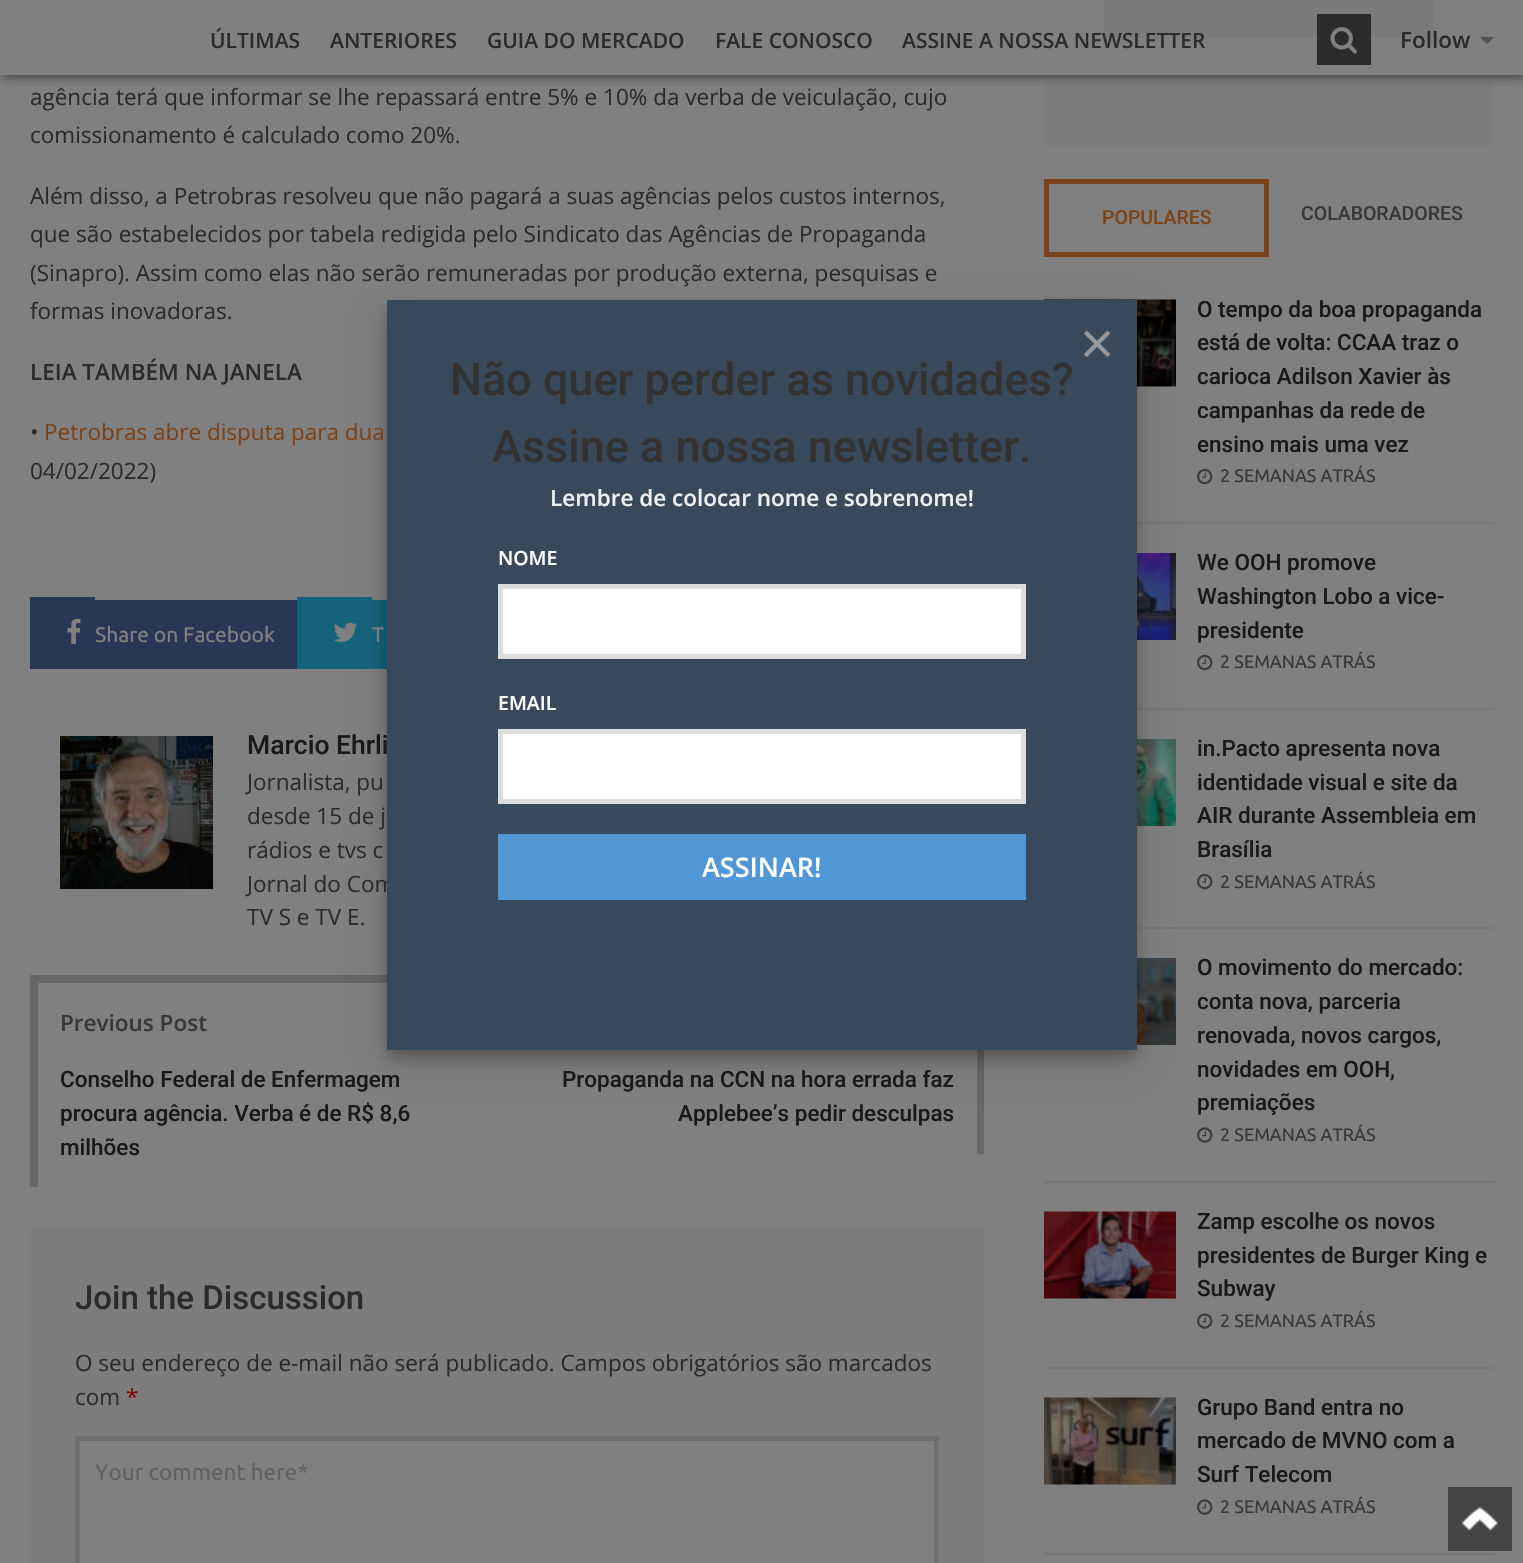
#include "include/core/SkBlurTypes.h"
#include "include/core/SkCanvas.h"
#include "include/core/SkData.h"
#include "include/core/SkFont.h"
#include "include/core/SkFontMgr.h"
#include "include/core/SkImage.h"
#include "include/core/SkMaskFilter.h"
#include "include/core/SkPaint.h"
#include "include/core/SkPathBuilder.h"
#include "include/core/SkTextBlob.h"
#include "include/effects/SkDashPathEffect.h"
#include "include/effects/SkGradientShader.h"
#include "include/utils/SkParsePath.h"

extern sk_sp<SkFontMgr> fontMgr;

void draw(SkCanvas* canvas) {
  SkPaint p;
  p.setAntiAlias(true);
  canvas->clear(SkColorSetRGB(128, 128, 128));
  p.setColor(SkColorSetRGB(125, 125, 125));
  canvas->drawRect(SkRect::MakeLTRB(1044, 75, 1494, 146), p);
  p.setColor(SkColorSetRGB(123, 123, 123));
  canvas->drawRect(SkRect::MakeLTRB(1104, 0, 1434, 38), p);
  canvas->save();
  canvas->clipRect(SkRect::MakeLTRB(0, 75, 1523, 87));
  p.setColor(SkColorSetRGB(60, 60, 60));
  p.setMaskFilter(SkMaskFilter::MakeBlur(kNormal_SkBlurStyle, 5));
  canvas->drawRect(SkRect::MakeLTRB(2, 2, 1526, 77), p);
  p.setMaskFilter(nullptr);
  canvas->restore();
  p.setColor(SkColorSetRGB(43, 43, 43));
  canvas->drawRect(SkRect::MakeLTRB(1317, 14, 1371, 65), p);
  canvas->drawImageRect(SkImages::DeferredFromEncodedData(SkData::MakeFromFileName("images/1.png")), SkRect::MakeLTRB(1330, 27, 1357, 54), SkSamplingOptions());
  canvas->drawImageRect(SkImages::DeferredFromEncodedData(SkData::MakeFromFileName("images/2.png")), SkRect::MakeLTRB(1480, 36, 1494, 44), SkSamplingOptions());
  p.setColor(SkColorSetRGB(41, 55, 86));
  canvas->drawRect(SkRect::MakeLTRB(30, 597, 95, 669), p);
  canvas->drawImageRect(SkImages::DeferredFromEncodedData(SkData::MakeFromFileName("images/3.png")), SkRect::MakeLTRB(67, 618, 81, 644), SkSamplingOptions());
  canvas->drawRect(SkRect::MakeLTRB(95, 600, 297, 669), p);
  p.setColor(SkColorSetRGB(21, 99, 123));
  canvas->drawRect(SkRect::MakeLTRB(297, 597, 372, 669), p);
  canvas->drawImageRect(SkImages::DeferredFromEncodedData(SkData::MakeFromFileName("images/4.png")), SkRect::MakeLTRB(333, 622, 358, 642), SkSamplingOptions());
  canvas->drawRect(SkRect::MakeLTRB(372, 600, 387, 669), p);
  canvas->drawImageRect(SkImages::DeferredFromEncodedData(SkData::MakeFromFileName("images/5.png")), SkRect::MakeLTRB(60, 736, 213, 889), SkSamplingOptions());
  p.setColor(SkColorSetRGB(102, 102, 102));
  canvas->drawRect(SkRect::MakeLTRB(30, 975, 387, 983), p);
  canvas->drawRect(SkRect::MakeLTRB(30, 975, 38, 1187), p);
  canvas->drawRect(SkRect::MakeLTRB(977, 1050, 984, 1154), p);
  p.setColor(SkColorSetRGB(125, 125, 125));
  canvas->drawRect(SkRect::MakeLTRB(30, 1229, 984, 1563), p);
  p.setColor(SkColorSetRGB(128, 128, 128));
  canvas->drawRect(SkRect::MakeLTRB(77.5f, 1438.5f, 936.5f, 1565.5f), p);
  p.setStyle(SkPaint::kStroke_Style);
  p.setStrokeWidth(5);
  p.setColor(SkColorSetRGB(111, 111, 111));
  canvas->drawRect(SkRect::MakeLTRB(77.5f, 1438.5f, 936.5f, 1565.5f), p);
  p.setColor(SkColorSetRGB(123, 67, 26));
  canvas->drawRect(SkRect::MakeLTRB(1046.5f, 181.5f, 1266.5f, 254.5f), p);
  p.setStyle(SkPaint::kFill_Style);
  p.setColor(SkColorSetRGB(119, 119, 119));
  canvas->drawRect(SkRect::MakeLTRB(1137, 522, 1494, 524), p);
  canvas->drawImageRect(SkImages::DeferredFromEncodedData(SkData::MakeFromFileName("images/6.png")), SkRect::MakeLTRB(1044, 299, 1176, 387), SkSamplingOptions());
  canvas->drawImageRect(SkImages::DeferredFromEncodedData(SkData::MakeFromFileName("images/7.png")), SkRect::MakeLTRB(1197, 468, 1213, 485), SkSamplingOptions());
  canvas->drawRect(SkRect::MakeLTRB(1137, 708, 1494, 710), p);
  canvas->drawImageRect(SkImages::DeferredFromEncodedData(SkData::MakeFromFileName("images/8.png")), SkRect::MakeLTRB(1137, 553, 1176, 640), SkSamplingOptions());
  canvas->drawImageRect(SkImages::DeferredFromEncodedData(SkData::MakeFromFileName("images/7.png")), SkRect::MakeLTRB(1197, 654, 1213, 671), SkSamplingOptions());
  canvas->drawRect(SkRect::MakeLTRB(1137, 927, 1494, 929), p);
  canvas->drawImageRect(SkImages::DeferredFromEncodedData(SkData::MakeFromFileName("images/9.png")), SkRect::MakeLTRB(1137, 739, 1176, 826), SkSamplingOptions());
  canvas->drawImageRect(SkImages::DeferredFromEncodedData(SkData::MakeFromFileName("images/7.png")), SkRect::MakeLTRB(1197, 873, 1213, 890), SkSamplingOptions());
  canvas->drawRect(SkRect::MakeLTRB(1044, 1181, 1494, 1183), p);
  canvas->drawImageRect(SkImages::DeferredFromEncodedData(SkData::MakeFromFileName("images/10.png")), SkRect::MakeLTRB(1137, 958, 1176, 1045), SkSamplingOptions());
  canvas->drawImageRect(SkImages::DeferredFromEncodedData(SkData::MakeFromFileName("images/11.png")), SkRect::MakeLTRB(1197, 1127, 1213, 1143), SkSamplingOptions());
  canvas->drawRect(SkRect::MakeLTRB(1044, 1367, 1494, 1369), p);
  canvas->drawImageRect(SkImages::DeferredFromEncodedData(SkData::MakeFromFileName("images/12.png")), SkRect::MakeLTRB(1044, 1211, 1176, 1299), SkSamplingOptions());
  canvas->drawImageRect(SkImages::DeferredFromEncodedData(SkData::MakeFromFileName("images/11.png")), SkRect::MakeLTRB(1197, 1313, 1213, 1329), SkSamplingOptions());
  canvas->drawRect(SkRect::MakeLTRB(1044, 1553, 1494, 1555), p);
  canvas->drawImageRect(SkImages::DeferredFromEncodedData(SkData::MakeFromFileName("images/13.png")), SkRect::MakeLTRB(1044, 1397, 1176, 1485), SkSamplingOptions());
  canvas->drawImageRect(SkImages::DeferredFromEncodedData(SkData::MakeFromFileName("images/11.png")), SkRect::MakeLTRB(1197, 1499, 1213, 1515), SkSamplingOptions());
  p.setColor(SkColorSetRGB(68, 68, 68));
  canvas->drawRect(SkRect::MakeLTRB(1448, 1487, 1512, 1551), p);
  canvas->drawImageRect(SkImages::DeferredFromEncodedData(SkData::MakeFromFileName("images/14.png")), SkRect::MakeLTRB(1461, 1507, 1499, 1531), SkSamplingOptions());
  p.setColor(SkColorSetARGB(43, 0, 0, 0));
  p.setMaskFilter(SkMaskFilter::MakeBlur(kNormal_SkBlurStyle, 15));
  canvas->drawRect(SkRect::MakeLTRB(387, 311, 1137, 1061), p);
  p.setMaskFilter(nullptr);
  p.setColor(SkColorSetARGB(51, 0, 0, 0));
  p.setMaskFilter(SkMaskFilter::MakeBlur(kNormal_SkBlurStyle, 6));
  canvas->drawRect(SkRect::MakeLTRB(387, 308, 1137, 1058), p);
  p.setMaskFilter(nullptr);
  SkFont font1(fontMgr->matchFamilyStyle("Open Sans", SkFontStyle(600, SkFontStyle::kNormal_Width, SkFontStyle::kUpright_Slant)), 21);
  font1.setSubpixel(true);
  p.setColor(SkColorSetRGB(43, 43, 43));
  canvas->drawString("ÚLTIMAS", 210, 48, font1, p);
  canvas->drawString("ANTERIORES", 330, 48, font1, p);
  canvas->drawString("GUIA DO MERCADO", 487, 48, font1, p);
  canvas->drawString("FALE CONOSCO", 715, 48, font1, p);
  canvas->drawString("ASSINE A NOSSA NEWSLETTER", 902, 48, font1, p);
  SkFont font2(fontMgr->matchFamilyStyle("Open Sans", SkFontStyle(600, SkFontStyle::kNormal_Width, SkFontStyle::kUpright_Slant)), 22.5f);
  font2.setSubpixel(true);
  canvas->drawString("Follow", 1400, 48, font2, p);
  SkFont font3(fontMgr->matchFamilyStyle("Open Sans", SkFontStyle::Normal()), 22.5f);
  font3.setSubpixel(true);
  canvas->drawString("agência terá que informar se lhe repassará entre 5% e 10% da verba de veiculação, cujo", 30, 105, font3, p);
  canvas->drawString("comissionamento é calculado como 20%.", 30, 143, font3, p);
  canvas->drawString("Além disso, a Petrobras resolveu que não pagará a suas agências pelos custos internos,", 30, 204, font3, p);
  canvas->drawString("que são estabelecidos por tabela redigida pelo Sindicato das Agências de Propaganda", 30, 242, font3, p);
  canvas->drawString("(Sinapro). Assim como elas não serão remuneradas por produção externa, pesquisas e", 30, 281, font3, p);
  canvas->drawString("formas inovadoras.", 30, 319, font3, p);
  canvas->drawString("LEIA TAMBÉM NA JANELA", 30, 380, font2, p);
  canvas->drawString("•", 30, 440, font3, p);
  p.setColor(SkColorSetRGB(123, 67, 26));
  canvas->drawString("Petrobras abre disputa para dua", 44, 440, font3, p);
  p.setColor(SkColorSetRGB(43, 43, 43));
  canvas->drawString("04/02/2022)", 30, 479, font3, p);
  SkFont font4(fontMgr->matchFamilyStyle("Ubuntu", SkFontStyle::Normal()), 21);
  font4.setSubpixel(true);
  p.setColor(SkColorSetRGB(128, 128, 128));
  canvas->drawString("Share on Facebook", 95, 642, font4, p);
  canvas->drawString("T", 372, 642, font4, p);
  SkFont font5(fontMgr->matchFamilyStyle("Roboto", SkFontStyle(500, SkFontStyle::kNormal_Width, SkFontStyle::kUpright_Slant)), 26.5f);
  font5.setSubpixel(true);
  p.setColor(SkColorSetRGB(26, 25, 25));
  canvas->drawString("Marcio Ehrli", 247, 754, font5, p);
  p.setColor(SkColorSetRGB(43, 43, 43));
  canvas->drawString("Jornalista, pu", 247, 790, font3, p);
  canvas->drawString("desde 15 de j", 247, 824, font3, p);
  canvas->drawString("rádios e tvs c", 247, 858, font3, p);
  canvas->drawString("Jornal do Com", 247, 892, font3, p);
  canvas->drawString("TV S e TV E.", 247, 925, font3, p);
  p.setColor(SkColorSetRGB(56, 56, 56));
  canvas->drawString("Previous Post", 60, 1031, font2, p);
  SkFont font6(fontMgr->matchFamilyStyle("Roboto", SkFontStyle(500, SkFontStyle::kNormal_Width, SkFontStyle::kUpright_Slant)), 22.5f);
  font6.setSubpixel(true);
  p.setColor(SkColorSetRGB(26, 25, 25));
  canvas->drawString("Conselho Federal de Enfermagem", 60, 1087, font6, p);
  canvas->drawString("procura agência. Verba é de R$ 8,6", 60, 1121, font6, p);
  canvas->drawString("milhões", 60, 1155, font6, p);
  canvas->drawString("Propaganda na CCN na hora errada faz", 562, 1087, font6, p);
  canvas->drawString("Applebee’s pedir desculpas", 678, 1121, font6, p);
  SkFont font7(fontMgr->matchFamilyStyle("Roboto", SkFontStyle(500, SkFontStyle::kNormal_Width, SkFontStyle::kUpright_Slant)), 33);
  font7.setSubpixel(true);
  p.setColor(SkColorSetRGB(43, 43, 43));
  canvas->drawString("Join the Discussion", 75, 1309, font7, p);
  canvas->drawString("O seu endereço de e-mail não será publicado. Campos obrigatórios são marcados", 75, 1371, font3, p);
  canvas->drawString("com", 75, 1405, font3, p);
  p.setColor(SkColorSetRGB(128, 0, 0));
  canvas->drawString("*", 126, 1405, font3, p);
  SkFont font8(fontMgr->matchFamilyStyle("Ubuntu", SkFontStyle::Normal()), 22.5f);
  font8.setSubpixel(true);
  p.setColor(SkColorSetRGB(97, 97, 97));
  canvas->drawString("Your comment here*", 95, 1480, font8, p);
  SkFont font9(fontMgr->matchFamilyStyle("Roboto", SkFontStyle(500, SkFontStyle::kNormal_Width, SkFontStyle::kUpright_Slant)), 19.5f);
  font9.setSubpixel(true);
  p.setColor(SkColorSetRGB(123, 67, 26));
  canvas->drawString("POPULARES", 1102, 224, font9, p);
  p.setColor(SkColorSetRGB(56, 56, 56));
  canvas->drawString("COLABORADORES", 1301, 220, font9, p);
  p.setColor(SkColorSetRGB(26, 25, 25));
  canvas->drawString("O tempo da boa propaganda", 1197, 317, font6, p);
  canvas->drawString("está de volta: CCAA traz o", 1197, 350, font6, p);
  canvas->drawString("carioca Adilson Xavier às", 1197, 384, font6, p);
  canvas->drawString("campanhas da rede de", 1197, 418, font6, p);
  canvas->drawString("ensino mais uma vez", 1197, 452, font6, p);
  SkFont font10(fontMgr->matchFamilyStyle("Ubuntu", SkFontStyle::Normal()), 18);
  font10.setSubpixel(true);
  p.setColor(SkColorSetRGB(56, 56, 56));
  canvas->drawString("2 SEMANAS ATRÁS", 1220, 482, font10, p);
  p.setColor(SkColorSetRGB(26, 25, 25));
  canvas->drawString("We OOH promove", 1197, 570, font6, p);
  canvas->drawString("Washington Lobo a vice-", 1197, 604, font6, p);
  canvas->drawString("presidente", 1197, 638, font6, p);
  p.setColor(SkColorSetRGB(56, 56, 56));
  canvas->drawString("2 SEMANAS ATRÁS", 1220, 668, font10, p);
  p.setColor(SkColorSetRGB(26, 25, 25));
  canvas->drawString("in.Pacto apresenta nova", 1197, 756, font6, p);
  canvas->drawString("identidade visual e site da", 1197, 790, font6, p);
  canvas->drawString("AIR durante Assembleia em", 1197, 823, font6, p);
  canvas->drawString("Brasília", 1197, 857, font6, p);
  p.setColor(SkColorSetRGB(56, 56, 56));
  canvas->drawString("2 SEMANAS ATRÁS", 1220, 888, font10, p);
  p.setColor(SkColorSetRGB(26, 25, 25));
  canvas->drawString("O movimento do mercado:", 1197, 975, font6, p);
  canvas->drawString("conta nova, parceria", 1197, 1009, font6, p);
  canvas->drawString("renovada, novos cargos,", 1197, 1043, font6, p);
  canvas->drawString("novidades em OOH,", 1197, 1077, font6, p);
  canvas->drawString("premiações", 1197, 1110, font6, p);
  p.setColor(SkColorSetRGB(56, 56, 56));
  canvas->drawString("2 SEMANAS ATRÁS", 1220, 1141, font10, p);
  p.setColor(SkColorSetRGB(26, 25, 25));
  canvas->drawString("Zamp escolhe os novos", 1197, 1229, font6, p);
  canvas->drawString("presidentes de Burger King e", 1197, 1263, font6, p);
  canvas->drawString("Subway", 1197, 1296, font6, p);
  p.setColor(SkColorSetRGB(56, 56, 56));
  canvas->drawString("2 SEMANAS ATRÁS", 1220, 1327, font10, p);
  p.setColor(SkColorSetRGB(26, 25, 25));
  canvas->drawString("Grupo Band entra no", 1197, 1415, font6, p);
  canvas->drawString("mercado de MVNO com a", 1197, 1448, font6, p);
  canvas->drawString("Surf Telecom", 1197, 1482, font6, p);
  p.setColor(SkColorSetRGB(56, 56, 56));
  canvas->drawString("2 SEMANAS ATRÁS", 1220, 1513, font10, p);
  p.setColor(SkColorSetRGB(56, 73, 92));
  canvas->drawRect(SkRect::MakeLTRB(387, 300, 1137, 1050), p);
  SkFont font11(fontMgr->matchFamilyStyle("Open Sans", SkFontStyle::Normal()), 60);
  font11.setSubpixel(true);
  p.setColor(SkColorSetRGB(153, 153, 153));
  canvas->drawString("×", 1080, 365, font11, p);
  SkFont font12(fontMgr->matchFamilyStyle("Roboto", SkFontStyle(500, SkFontStyle::kNormal_Width, SkFontStyle::kUpright_Slant)), 45);
  font12.setSubpixel(true);
  p.setColor(SkColorSetRGB(51, 50, 50));
  canvas->drawString("Não quer perder as novidades?", 450, 395, font12, p);
  canvas->drawString("Assine a nossa newsletter.", 492, 462, font12, p);
  p.setColor(SkColorSetRGB(236, 240, 241));
  canvas->drawString("Lembre de colocar nome e sobrenome!", 550, 506, font2, p);
  SkFont font13(fontMgr->matchFamilyStyle("Open Sans", SkFontStyle(600, SkFontStyle::kNormal_Width, SkFontStyle::kUpright_Slant)), 19.5f);
  font13.setSubpixel(true);
  p.setColor(SK_ColorWHITE);
  canvas->drawString("NOME", 498, 565, font13, p);
  canvas->drawRect(SkRect::MakeLTRB(500.5f, 586.5f, 1023.5f, 656.5f), p);
  p.setStyle(SkPaint::kStroke_Style);
  p.setColor(SkColorSetRGB(221, 221, 221));
  canvas->drawRect(SkRect::MakeLTRB(500.5f, 586.5f, 1023.5f, 656.5f), p);
  p.setStyle(SkPaint::kFill_Style);
  p.setColor(SK_ColorWHITE);
  canvas->drawString("EMAIL", 498, 710, font13, p);
  canvas->drawRect(SkRect::MakeLTRB(500.5f, 731.5f, 1023.5f, 801.5f), p);
  p.setStyle(SkPaint::kStroke_Style);
  p.setColor(SkColorSetRGB(221, 221, 221));
  canvas->drawRect(SkRect::MakeLTRB(500.5f, 731.5f, 1023.5f, 801.5f), p);
  p.setStyle(SkPaint::kFill_Style);
  p.setColor(SkColorSetRGB(81, 151, 213));
  canvas->drawRect(SkRect::MakeLTRB(498, 834, 1026, 900), p);
  SkFont font14(fontMgr->matchFamilyStyle("Open Sans", SkFontStyle(600, SkFontStyle::kNormal_Width, SkFontStyle::kUpright_Slant)), 27);
  font14.setSubpixel(true);
  p.setColor(SK_ColorWHITE);
  canvas->drawString("ASSINAR!", 702, 877, font14, p);
}
